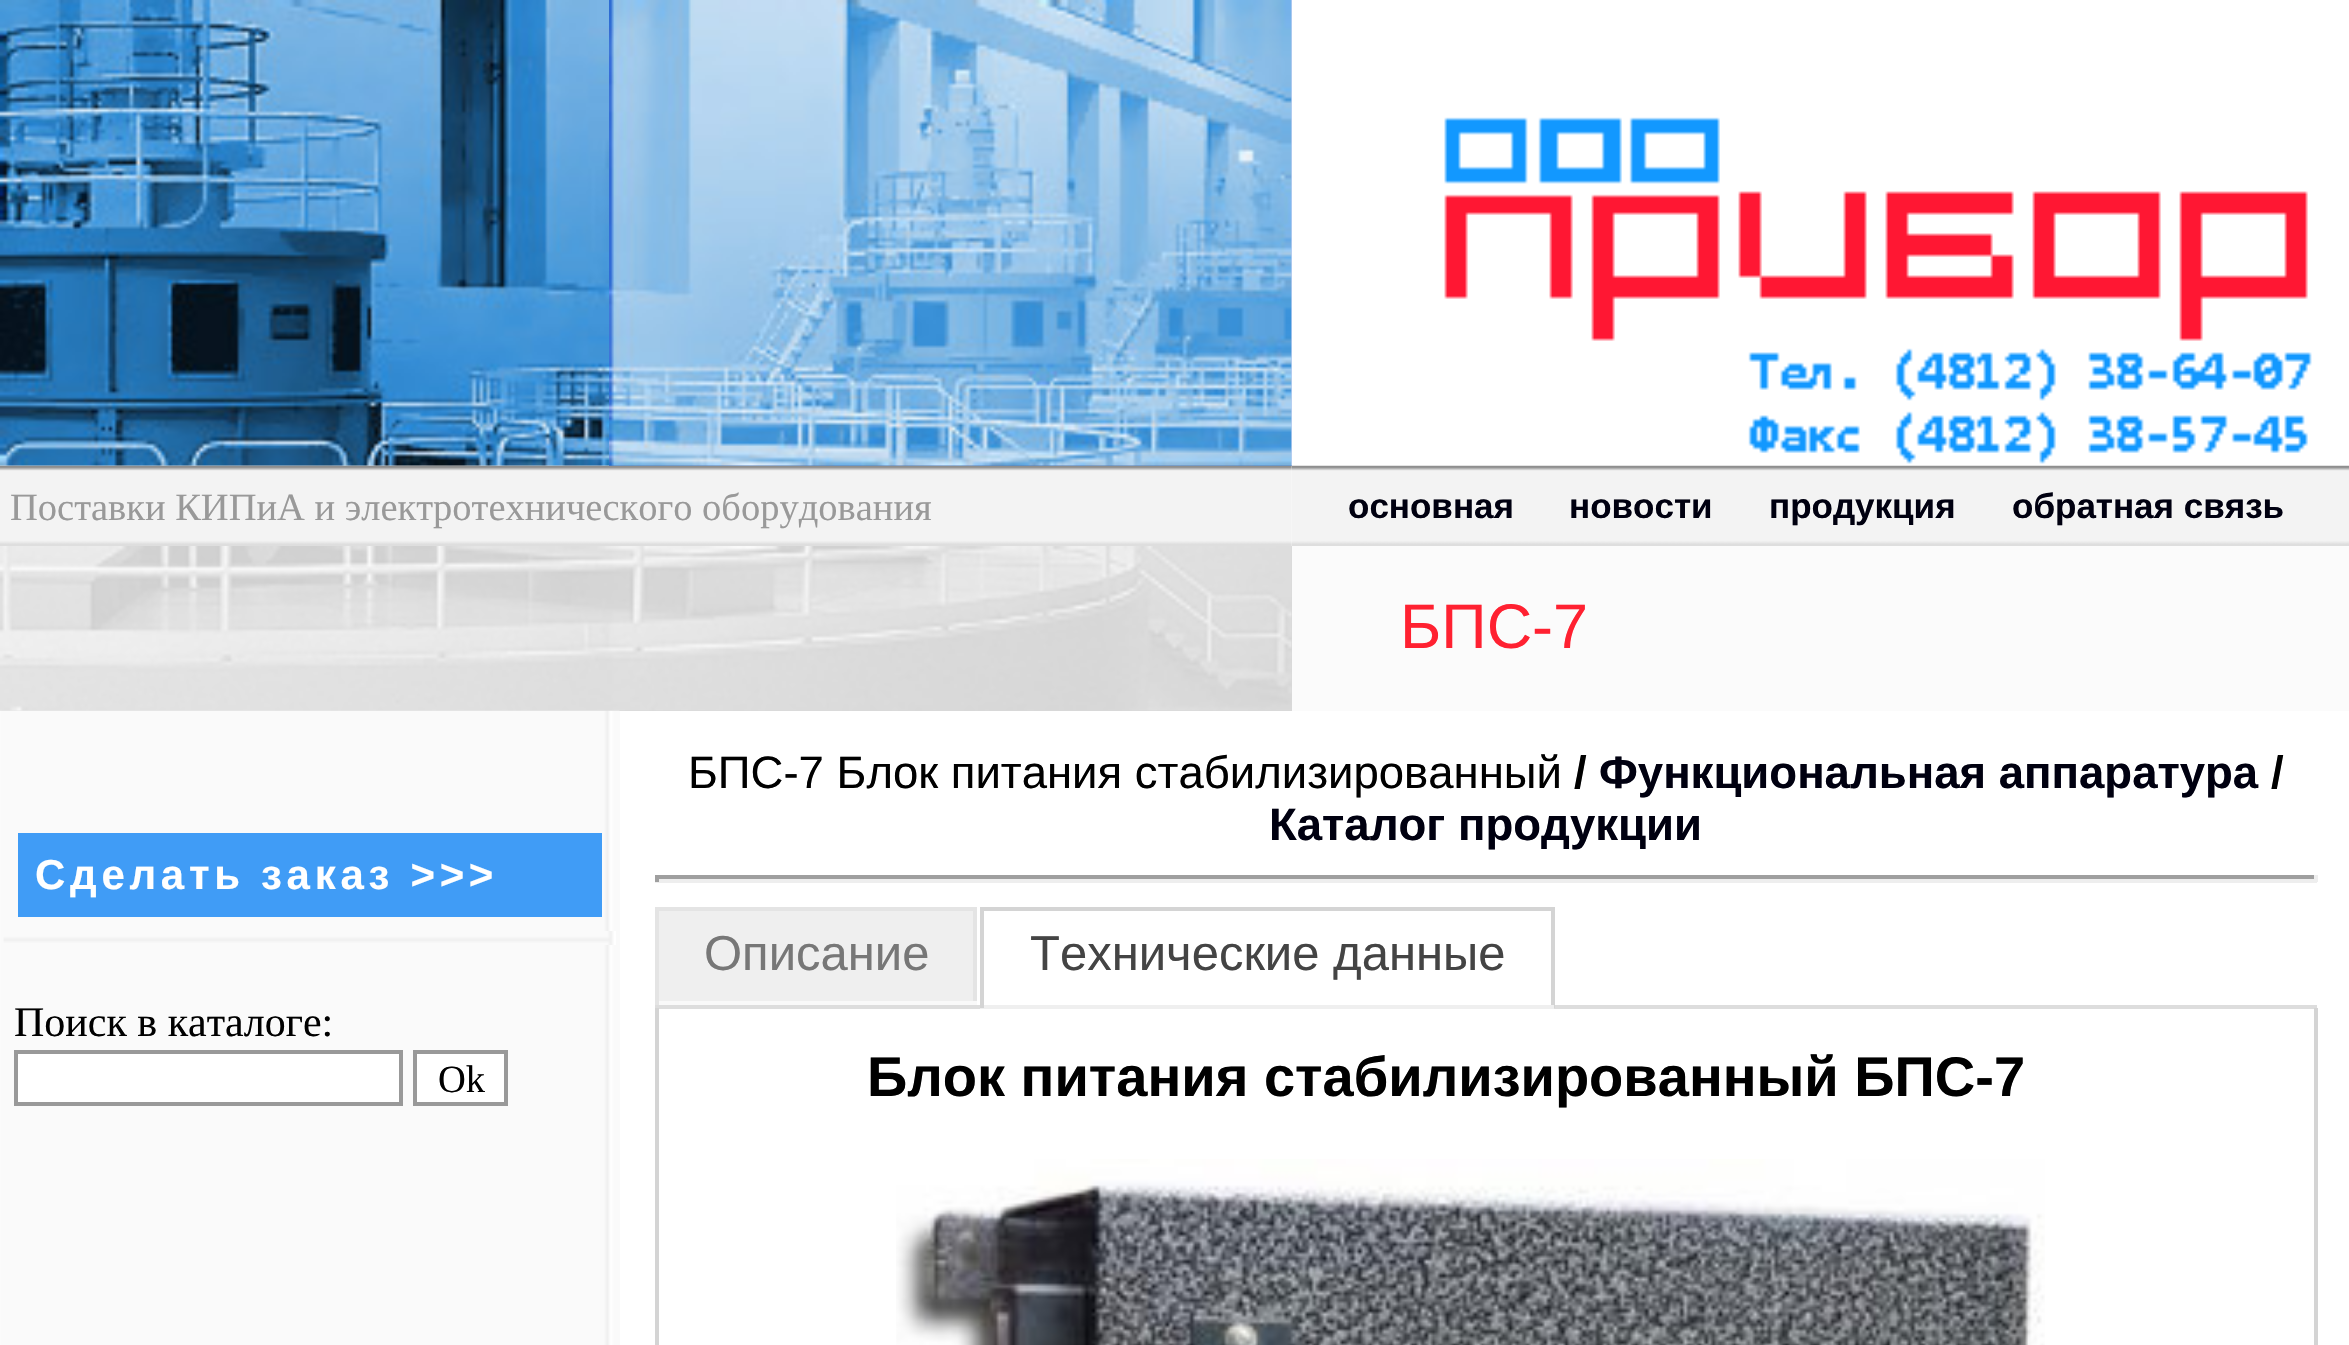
#include "include/core/SkBlurTypes.h"
#include "include/core/SkCanvas.h"
#include "include/core/SkData.h"
#include "include/core/SkFont.h"
#include "include/core/SkFontMgr.h"
#include "include/core/SkImage.h"
#include "include/core/SkMaskFilter.h"
#include "include/core/SkPaint.h"
#include "include/core/SkPathBuilder.h"
#include "include/core/SkTextBlob.h"
#include "include/effects/SkDashPathEffect.h"
#include "include/effects/SkGradientShader.h"
#include "include/utils/SkParsePath.h"

extern sk_sp<SkFontMgr> fontMgr;

void draw(SkCanvas* canvas) {
  SkPaint p;
  p.setAntiAlias(true);
  auto spacedText = [&](const char* s, float x, float y, const SkFont& font, const SkPaint& ink, float letter, float word) {
    std::vector<SkGlyphID> glyphs(font.countText(s, strlen(s), SkTextEncoding::kUTF8));
    std::vector<float> xs(glyphs.size());
    font.textToGlyphs(s, strlen(s), SkTextEncoding::kUTF8, glyphs);
    font.getXPos(glyphs, xs, x);
    float extra = 0;
    for (size_t i = 0; i < glyphs.size(); i++) {
      xs[i] += extra;
      extra += letter + word * (glyphs[i] == font.unicharToGlyph(' '));
    }
    canvas->drawTextBlob(SkTextBlob::MakeFromPosHGlyphs(glyphs, xs, y, font), 0, 0, ink);
  };
  canvas->clear(SK_ColorWHITE);
  p.setColor(SkColorSetRGB(46, 108, 212));
  canvas->drawRect(SkRect::MakeLTRB(609, 0, 1292, 466), p);
  canvas->drawImageRect(SkImages::DeferredFromEncodedData(SkData::MakeFromFileName("images/4.png")), SkRect::MakeLTRB(0, 465, 1292, 546), SkSamplingOptions());
  canvas->drawImageRect(SkImages::DeferredFromEncodedData(SkData::MakeFromFileName("images/1.png")), SkRect::MakeLTRB(0, 0, 609, 466), SkSamplingOptions());
  canvas->drawImageRect(SkImages::DeferredFromEncodedData(SkData::MakeFromFileName("images/5.png")), SkRect::MakeLTRB(1291, 465, 2349, 546), SkSamplingOptions());
  canvas->drawImageRect(SkImages::DeferredFromEncodedData(SkData::MakeFromFileName("images/2.png")), SkRect::MakeLTRB(609, 0, 1292, 466), SkSamplingOptions());
  canvas->drawImageRect(SkImages::DeferredFromEncodedData(SkData::MakeFromFileName("images/3.png")), SkRect::MakeLTRB(1291, 0, 2349, 466), SkSamplingOptions());
  p.setColor(SkColorSetRGB(216, 216, 216));
  canvas->drawRect(SkRect::MakeLTRB(0, 546, 1292, 711), p);
  p.setColor(SkColorSetRGB(250, 250, 250));
  canvas->drawRect(SkRect::MakeLTRB(619, 711, 620, 1345), p);
  canvas->drawImageRect(SkImages::DeferredFromEncodedData(SkData::MakeFromFileName("images/7.png")), SkRect::MakeLTRB(0, 710, 620, 1345), SkSamplingOptions());
  canvas->drawImageRect(SkImages::DeferredFromEncodedData(SkData::MakeFromFileName("images/6.png")), SkRect::MakeLTRB(0, 546, 1292, 711), SkSamplingOptions());
  p.setColor(SkColorSetRGB(251, 251, 251));
  canvas->drawRect(SkRect::MakeLTRB(1292, 546, 2349, 711), p);
  p.setColor(SkColorSetRGB(64, 156, 246));
  canvas->drawRect(SkRect::MakeLTRB(18, 833, 602, 917), p);
  canvas->drawImageRect(SkImages::DeferredFromEncodedData(SkData::MakeFromFileName("images/8.png")), SkRect::MakeLTRB(3, 931, 616, 945), SkSamplingOptions());
  p.setColor(SK_ColorWHITE);
  canvas->drawRect(SkRect::MakeLTRB(16, 1052, 401, 1104), p);
  p.setStyle(SkPaint::kStroke_Style);
  p.setStrokeWidth(4);
  p.setColor(SkColorSetRGB(153, 153, 153));
  canvas->drawRect(SkRect::MakeLTRB(16, 1052, 401, 1104), p);
  p.setStyle(SkPaint::kFill_Style);
  p.setColor(SK_ColorWHITE);
  canvas->drawRect(SkRect::MakeLTRB(415, 1052, 506, 1104), p);
  p.setStyle(SkPaint::kStroke_Style);
  p.setColor(SkColorSetRGB(153, 153, 153));
  canvas->drawRect(SkRect::MakeLTRB(415, 1052, 506, 1104), p);
  p.setStyle(SkPaint::kFill_Style);
  p.setColor(SkColorSetRGB(159, 159, 159));
  canvas->drawRect(SkRect::MakeLTRB(655, 875, 2317, 879), p);
  p.setColor(SkColorSetRGB(238, 238, 238));
  canvas->drawRect(SkRect::MakeLTRB(2314, 875, 2318, 882), p);
  canvas->drawRect(SkRect::MakeLTRB(655, 879, 2317, 883), p);
  p.setColor(SkColorSetRGB(159, 159, 159));
  canvas->drawRect(SkRect::MakeLTRB(655, 875, 659, 882), p);
  p.setColor(SkColorSetRGB(221, 221, 221));
  canvas->drawRect(SkRect::MakeLTRB(655, 1005, 2317, 1009), p);
  p.setColor(SkColorSetRGB(239, 239, 239));
  canvas->drawRect(SkRect::MakeLTRB(659, 911, 973, 1001), p);
  p.setColor(SkColorSetRGB(228, 228, 228));
  canvas->drawRect(SkRect::MakeLTRB(655, 907, 977, 911), p);
  canvas->drawRect(SkRect::MakeLTRB(973, 907, 977, 1005), p);
  p.setColor(SkColorSetRGB(249, 249, 249));
  canvas->drawRect(SkRect::MakeLTRB(655, 1001, 977, 1005), p);
  p.setColor(SkColorSetRGB(228, 228, 228));
  canvas->drawRect(SkRect::MakeLTRB(655, 907, 659, 1005), p);
  p.setColor(SkColorSetRGB(212, 212, 212));
  canvas->drawRect(SkRect::MakeLTRB(980, 907, 1554, 911), p);
  canvas->drawRect(SkRect::MakeLTRB(1551, 907, 1555, 1008), p);
  p.setColor(SkColorSetRGB(239, 239, 239));
  canvas->drawRect(SkRect::MakeLTRB(980, 1005, 1554, 1009), p);
  p.setColor(SkColorSetRGB(212, 212, 212));
  canvas->drawRect(SkRect::MakeLTRB(980, 907, 984, 1008), p);
  canvas->drawRect(SkRect::MakeLTRB(2314, 1008, 2318, 1345), p);
  canvas->drawRect(SkRect::MakeLTRB(655, 1008, 659, 1345), p);
  canvas->drawImageRect(SkImages::DeferredFromEncodedData(SkData::MakeFromFileName("images/9.png")), SkRect::MakeLTRB(896, 1159, 2045, 1345), SkSamplingOptions());
  SkFont font1(fontMgr->matchFamilyStyle("Liberation Serif", SkFontStyle::Normal()), 38.5f);
  font1.setSubpixel(true);
  p.setColor(SkColorSetRGB(153, 153, 153));
  canvas->drawString("Поставки КИПиА и электротехнического оборудования", 10, 520, font1, p);
  SkFont font2(fontMgr->matchFamilyStyle("Liberation Sans", SkFontStyle::Bold()), 35);
  font2.setSubpixel(true);
  p.setColor(SkColorSetRGB(0, 0, 16));
  canvas->drawString("основная", 1348, 518, font2, p);
  canvas->drawString("новости", 1569, 518, font2, p);
  canvas->drawString("продукция", 1769, 518, font2, p);
  canvas->drawString("обратная связь", 2012, 518, font2, p);
  SkFont font3(fontMgr->matchFamilyStyle("Liberation Sans", SkFontStyle::Normal()), 63);
  font3.setSubpixel(true);
  p.setColor(SkColorSetRGB(255, 33, 49));
  canvas->drawString("БПС-7", 1400, 648, font3, p);
  SkFont font4(fontMgr->matchFamilyStyle("Liberation Sans", SkFontStyle::Bold()), 42);
  font4.setSubpixel(true);
  p.setColor(SK_ColorWHITE);
  spacedText("Сделать заказ >>>", 35, 889, font4, p, 4.7f, 0);
  SkFont font5(fontMgr->matchFamilyStyle("Liberation Serif", SkFontStyle::Normal()), 42);
  font5.setSubpixel(true);
  p.setColor(SK_ColorBLACK);
  canvas->drawString("Поиск в каталоге:", 14, 1036, font5, p);
  canvas->drawString("Ok", 438, 1092, font1, p);
  SkFont font6(fontMgr->matchFamilyStyle("Liberation Sans", SkFontStyle::Normal()), 45.5f);
  font6.setSubpixel(true);
  canvas->drawString("БПС-7 Блок питания стабилизированный", 688, 788, font6, p);
  SkFont font7(fontMgr->matchFamilyStyle("Liberation Sans", SkFontStyle::Bold()), 45.5f);
  font7.setSubpixel(true);
  canvas->drawString("/", 1574, 788, font7, p);
  p.setColor(SkColorSetRGB(0, 0, 16));
  canvas->drawString("Функциональная аппаратура", 1599, 788, font7, p);
  p.setColor(SK_ColorBLACK);
  canvas->drawString("/", 2271, 788, font7, p);
  p.setColor(SkColorSetRGB(0, 0, 16));
  canvas->drawString("Каталог продукции", 1269, 840, font7, p);
  SkFont font8(fontMgr->matchFamilyStyle("Liberation Sans", SkFontStyle::Normal()), 49);
  font8.setSubpixel(true);
  p.setColor(SkColorSetRGB(119, 119, 119));
  canvas->drawString("Описание", 704, 970, font8, p);
  p.setColor(SkColorSetRGB(68, 68, 68));
  canvas->drawString("Технические данные", 1030, 970, font8, p);
  SkFont font9(fontMgr->matchFamilyStyle("Liberation Sans", SkFontStyle::Bold()), 56);
  font9.setSubpixel(true);
  p.setColor(SK_ColorBLACK);
  canvas->drawString("Блок питания стабилизированный БПС-7", 867, 1096, font9, p);
}
